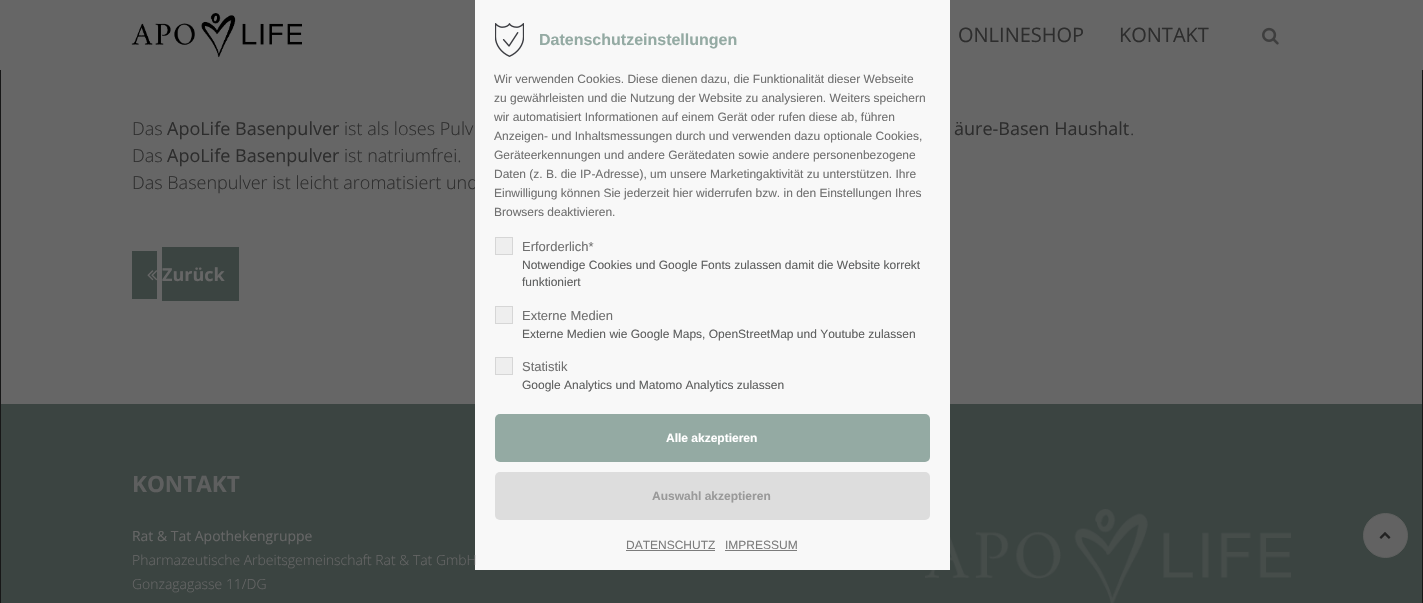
#include "include/core/SkBlurTypes.h"
#include "include/core/SkCanvas.h"
#include "include/core/SkData.h"
#include "include/core/SkFont.h"
#include "include/core/SkFontMgr.h"
#include "include/core/SkImage.h"
#include "include/core/SkMaskFilter.h"
#include "include/core/SkPaint.h"
#include "include/core/SkPathBuilder.h"
#include "include/core/SkTextBlob.h"
#include "include/effects/SkDashPathEffect.h"
#include "include/effects/SkGradientShader.h"
#include "include/utils/SkParsePath.h"

extern sk_sp<SkFontMgr> fontMgr;

void draw(SkCanvas* canvas) {
  SkPaint p;
  p.setAntiAlias(true);
  canvas->clear(SkColorSetRGB(23, 23, 23));
  p.setColor(SkColorSetRGB(102, 102, 102));
  canvas->drawRect(SkRect::MakeLTRB(0, 0, 1423, 70), p);
  canvas->drawImageRect(SkImages::DeferredFromEncodedData(SkData::MakeFromFileName("images/2.png")), SkRect::MakeLTRB(131, 13, 302, 58), SkSamplingOptions());
  canvas->drawImageRect(SkImages::DeferredFromEncodedData(SkData::MakeFromFileName("images/3.png")), SkRect::MakeLTRB(1262, 27, 1279, 45), SkSamplingOptions());
  canvas->drawRect(SkRect::MakeLTRB(1, 70, 1422, 404), p);
  p.setColor(SkColorSetRGB(59, 68, 65));
  canvas->drawRect(SkRect::MakeLTRB(132, 251, 157, 299), p);
  canvas->drawImageRect(SkImages::DeferredFromEncodedData(SkData::MakeFromFileName("images/4.png")), SkRect::MakeLTRB(147, 270, 157, 281), SkSamplingOptions());
  canvas->drawRect(SkRect::MakeLTRB(162, 247, 239, 301), p);
  canvas->drawRect(SkRect::MakeLTRB(1, 404, 1422, 603), p);
  canvas->drawImageRect(SkImages::DeferredFromEncodedData(SkData::MakeFromFileName("images/5.png")), SkRect::MakeLTRB(925, 509, 1291, 603), SkSamplingOptions());
  p.setColor(SkColorSetRGB(98, 98, 98));
  canvas->drawCircle(1385.5f, 535.5f, 22, p);
  p.setStyle(SkPaint::kStroke_Style);
  p.setStrokeWidth(1);
  p.setColor(SkColorSetRGB(94, 95, 94));
  canvas->drawCircle(1385.5f, 535.5f, 22, p);
  canvas->drawImageRect(SkImages::DeferredFromEncodedData(SkData::MakeFromFileName("images/6.png")), SkRect::MakeLTRB(1379, 532, 1391, 539), SkSamplingOptions());
  SkFont font1(fontMgr->matchFamilyStyle("Open Sans", SkFontStyle::Normal()), 20);
  font1.setSubpixel(true);
  p.setStyle(SkPaint::kFill_Style);
  p.setColor(SkColorSetRGB(45, 45, 45));
  canvas->drawString("ONLINESHOP", 958, 42, font1, p);
  canvas->drawString("KONTAKT", 1119, 42, font1, p);
  SkFont font2(fontMgr->matchFamilyStyle("Open Sans", SkFontStyle(300, SkFontStyle::kNormal_Width, SkFontStyle::kUpright_Slant)), 18);
  font2.setSubpixel(true);
  canvas->drawString("Das", 132, 135, font2, p);
  SkFont font3(fontMgr->matchFamilyStyle("Open Sans", SkFontStyle::Normal()), 18);
  font3.setSubpixel(true);
  canvas->drawString("ApoLife Basenpulver", 167, 135, font3, p);
  canvas->drawString("ist als loses Pulv", 344, 135, font2, p);
  canvas->drawString("äure-Basen Haushalt", 954, 135, font3, p);
  canvas->drawString(".", 1130, 135, font2, p);
  canvas->drawString("Das", 132, 162, font2, p);
  canvas->drawString("ApoLife Basenpulver", 167, 162, font3, p);
  canvas->drawString("ist natriumfrei.", 344, 162, font2, p);
  canvas->drawString("Das Basenpulver ist leicht aromatisiert und", 132, 189, font2, p);
  p.setColor(SkColorSetRGB(248, 248, 248));
  canvas->drawRect(SkRect::MakeLTRB(475, 0, 950, 570), p);
  p.setColor(SkColorSetRGB(221, 221, 221));
  canvas->drawRoundRect(SkRect::MakeLTRB(495, 472, 930, 520), 5, 5, p);
  SkFont font4(fontMgr->matchFamilyStyle("Liberation Sans", SkFontStyle::Bold()), 12);
  font4.setSubpixel(true);
  p.setColor(SkColorSetRGB(154, 154, 154));
  canvas->drawString("Auswahl akzeptieren", 652, 500, font4, p);
  p.setColor(SkColorSetRGB(148, 170, 163));
  canvas->drawRoundRect(SkRect::MakeLTRB(495, 414, 930, 462), 5, 5, p);
  p.setColor(SK_ColorWHITE);
  canvas->drawString("Alle akzeptieren", 666, 442, font4, p);
  p.setColor(SkColorSetRGB(238, 238, 238));
  canvas->drawRect(SkRect::MakeLTRB(495.5f, 357.5f, 512.5f, 374.5f), p);
  p.setStyle(SkPaint::kStroke_Style);
  p.setColor(SkColorSetRGB(214, 214, 214));
  canvas->drawRect(SkRect::MakeLTRB(495.5f, 357.5f, 512.5f, 374.5f), p);
  SkFont font5(fontMgr->matchFamilyStyle("Liberation Sans", SkFontStyle::Normal()), 12);
  font5.setSubpixel(true);
  p.setStyle(SkPaint::kFill_Style);
  p.setColor(SkColorSetRGB(94, 95, 95));
  canvas->drawString("Google Analytics und Matomo Analytics zulassen", 522, 389, font5, p);
  SkFont font6(fontMgr->matchFamilyStyle("Liberation Sans", SkFontStyle::Normal()), 13);
  font6.setSubpixel(true);
  p.setColor(SkColorSetRGB(112, 112, 112));
  canvas->drawString("Statistik", 522, 371, font6, p);
  p.setColor(SkColorSetRGB(238, 238, 238));
  canvas->drawRect(SkRect::MakeLTRB(495.5f, 306.5f, 512.5f, 323.5f), p);
  p.setStyle(SkPaint::kStroke_Style);
  p.setColor(SkColorSetRGB(214, 214, 214));
  canvas->drawRect(SkRect::MakeLTRB(495.5f, 306.5f, 512.5f, 323.5f), p);
  p.setStyle(SkPaint::kFill_Style);
  p.setColor(SkColorSetRGB(94, 95, 95));
  canvas->drawString("Externe Medien wie Google Maps, OpenStreetMap und Youtube zulassen", 522, 338, font5, p);
  p.setColor(SkColorSetRGB(112, 112, 112));
  canvas->drawString("Externe Medien", 522, 320, font6, p);
  p.setColor(SkColorSetRGB(238, 238, 238));
  canvas->drawRect(SkRect::MakeLTRB(495.5f, 237.5f, 512.5f, 254.5f), p);
  p.setStyle(SkPaint::kStroke_Style);
  p.setColor(SkColorSetRGB(214, 214, 214));
  canvas->drawRect(SkRect::MakeLTRB(495.5f, 237.5f, 512.5f, 254.5f), p);
  p.setStyle(SkPaint::kFill_Style);
  p.setColor(SkColorSetRGB(94, 95, 95));
  canvas->drawString("funktioniert", 522, 286, font5, p);
  canvas->drawString("Notwendige Cookies und Google Fonts zulassen damit die Website korrekt", 522, 269, font5, p);
  p.setColor(SkColorSetRGB(112, 112, 112));
  canvas->drawString("Erforderlich*", 522, 251, font6, p);
  p.setColor(SkColorSetRGB(124, 124, 124));
  canvas->drawString("IMPRESSUM", 725, 549, font5, p);
  canvas->drawRect(SkRect::MakeLTRB(725, 550, 797, 551), p);
  canvas->drawString("DATENSCHUTZ", 626, 549, font5, p);
  canvas->drawRect(SkRect::MakeLTRB(626, 550, 715, 551), p);
  p.setColor(SkColorSetRGB(112, 112, 112));
  canvas->drawString("Browsers deaktivieren.", 494, 216, font5, p);
  canvas->drawString("Einwilligung können Sie jederzeit hier widerrufen bzw. in den Einstellungen Ihres", 494, 197, font5, p);
  canvas->drawString("Daten (z. B. die IP-Adresse), um unsere Marketingaktivität zu unterstützen. Ihre", 494, 178, font5, p);
  canvas->drawString("Geräteerkennungen und andere Gerätedaten sowie andere personenbezogene", 494, 159, font5, p);
  canvas->drawString("Anzeigen- und Inhaltsmessungen durch und verwenden dazu optionale Cookies,", 494, 140, font5, p);
  canvas->drawString("wir automatisiert Informationen auf einem Gerät oder rufen diese ab, führen", 494, 121, font5, p);
  canvas->drawString("zu gewährleisten und die Nutzung der Website zu analysieren. Weiters speichern", 494, 102, font5, p);
  canvas->drawString("Wir verwenden Cookies. Diese dienen dazu, die Funktionalität dieser Webseite", 494, 83, font5, p);
  SkFont font7(fontMgr->matchFamilyStyle("Liberation Sans", SkFontStyle::Bold()), 16);
  font7.setSubpixel(true);
  p.setColor(SkColorSetRGB(148, 170, 163));
  canvas->drawString("Datenschutzeinstellungen", 539, 45, font7, p);
  canvas->drawImageRect(SkImages::DeferredFromEncodedData(SkData::MakeFromFileName("images/1.png")), SkRect::MakeLTRB(495, 23, 524, 57), SkSamplingOptions());
  SkFont font8(fontMgr->matchFamilyStyle("Open Sans", SkFontStyle::Bold()), 18);
  font8.setSubpixel(true);
  p.setColor(SkColorSetRGB(102, 102, 102));
  canvas->drawString("Zurück", 162, 281, font8, p);
  SkFont font9(fontMgr->matchFamilyStyle("Open Sans", SkFontStyle::Bold()), 22.5f);
  font9.setSubpixel(true);
  p.setColor(SkColorSetRGB(94, 95, 95));
  canvas->drawString("KONTAKT", 132, 492, font9, p);
  SkFont font10(fontMgr->matchFamilyStyle("Open Sans", SkFontStyle::Normal()), 13.95f);
  font10.setSubpixel(true);
  p.setColor(SkColorSetRGB(102, 102, 102));
  canvas->drawString("Rat & Tat Apothekengruppe", 132, 541, font10, p);
  SkFont font11(fontMgr->matchFamilyStyle("Open Sans", SkFontStyle(300, SkFontStyle::kNormal_Width, SkFontStyle::kUpright_Slant)), 13.95f);
  font11.setSubpixel(true);
  canvas->drawString("Pharmazeutische Arbeitsgemeinschaft Rat & Tat GmbH", 132, 565, font11, p);
  canvas->drawString("Gonzagagasse 11/DG", 132, 589, font11, p);
}
